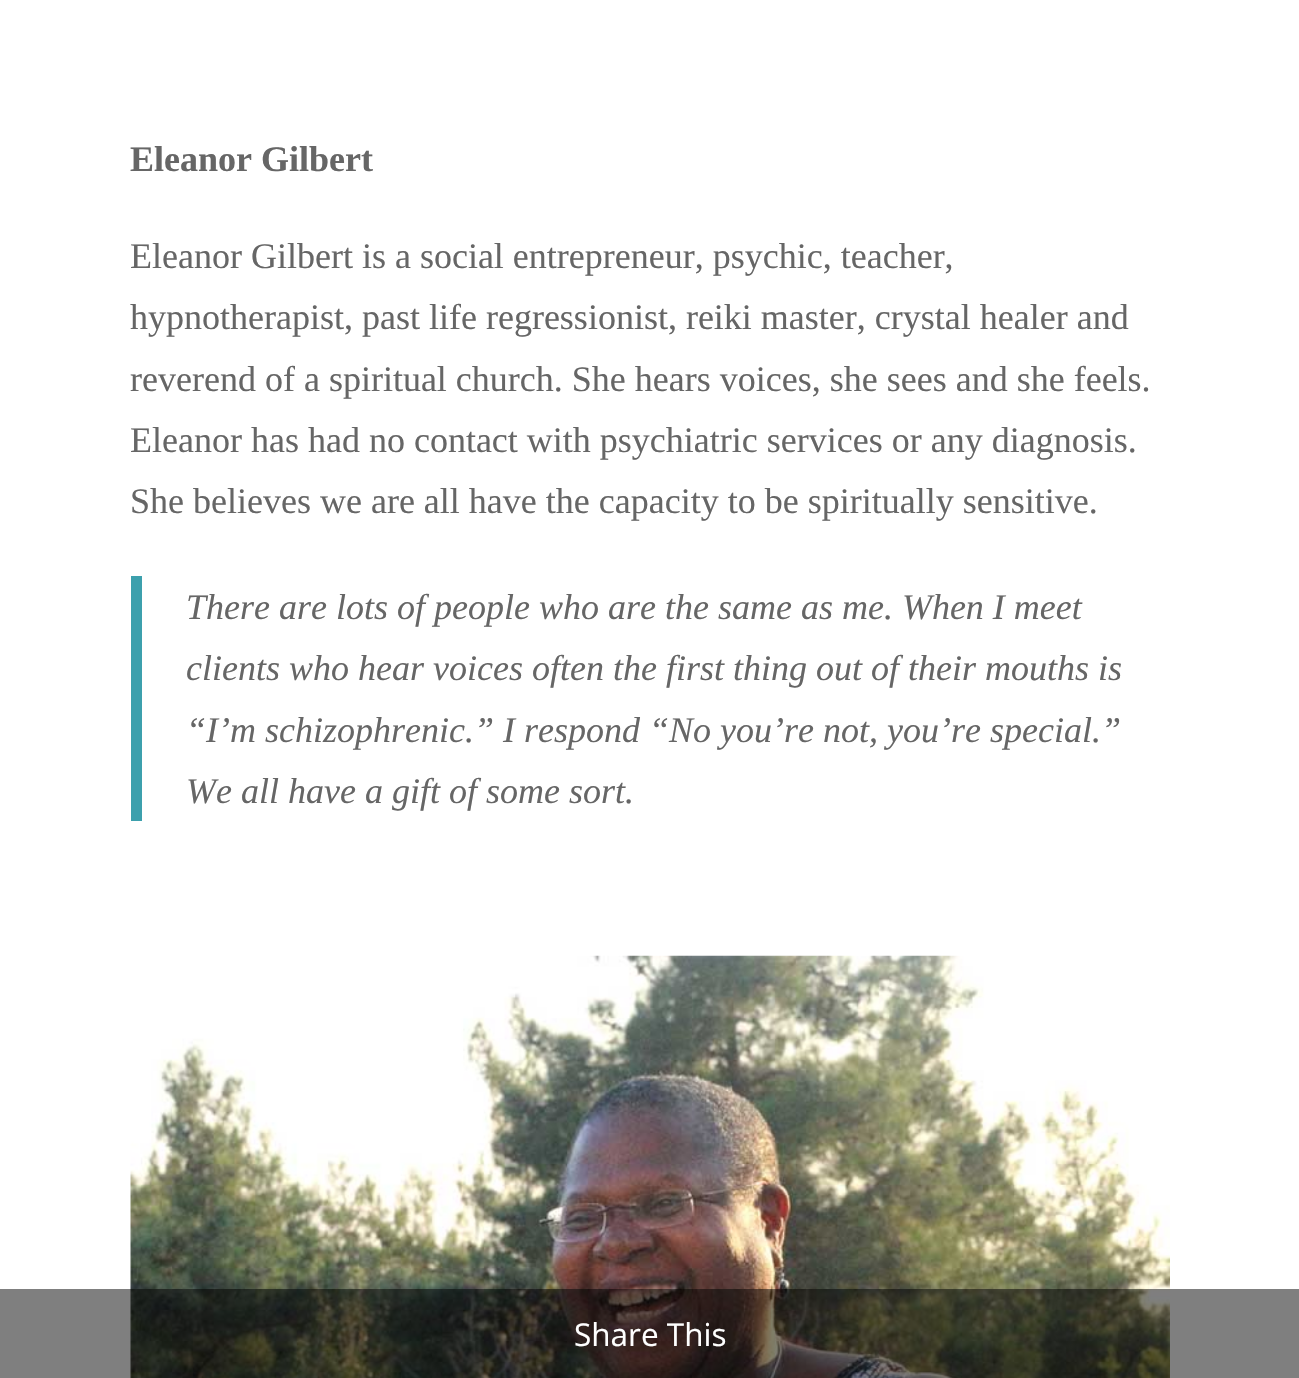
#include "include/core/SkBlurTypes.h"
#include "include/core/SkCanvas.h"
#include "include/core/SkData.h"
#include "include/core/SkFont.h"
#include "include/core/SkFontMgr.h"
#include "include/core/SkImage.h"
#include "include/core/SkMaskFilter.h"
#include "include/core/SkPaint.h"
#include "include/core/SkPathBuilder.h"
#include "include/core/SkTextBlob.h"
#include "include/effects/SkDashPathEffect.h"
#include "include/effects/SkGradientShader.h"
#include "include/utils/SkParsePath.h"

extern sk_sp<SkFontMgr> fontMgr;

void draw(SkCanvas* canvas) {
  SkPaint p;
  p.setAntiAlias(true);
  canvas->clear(SK_ColorWHITE);
  p.setColor(SkColorSetRGB(60, 160, 173));
  canvas->drawRect(SkRect::MakeLTRB(131, 576, 142, 821), p);
  canvas->drawImageRect(SkImages::DeferredFromEncodedData(SkData::MakeFromFileName("images/1.png")), SkRect::MakeLTRB(130, 955, 1170, 1378), SkSamplingOptions());
  p.setColor(SkColorSetARGB(128, 0, 0, 0));
  canvas->drawRect(SkRect::MakeLTRB(0, 1289, 1299, 1378), p);
  SkFont font1(fontMgr->matchFamilyStyle("Liberation Serif", SkFontStyle::Bold()), 36);
  font1.setSubpixel(true);
  p.setColor(SkColorSetRGB(102, 102, 102));
  canvas->drawString("Eleanor Gilbert", 130, 171, font1, p);
  SkFont font2(fontMgr->matchFamilyStyle("Liberation Serif", SkFontStyle::Normal()), 36);
  font2.setSubpixel(true);
  canvas->drawString("Eleanor Gilbert is a social entrepreneur, psychic, teacher,", 130, 268, font2, p);
  canvas->drawString("hypnotherapist, past life regressionist, reiki master, crystal healer and", 130, 329, font2, p);
  canvas->drawString("reverend of a spiritual church. She hears voices, she sees and she feels.", 130, 391, font2, p);
  canvas->drawString("Eleanor has had no contact with psychiatric services or any diagnosis.", 130, 452, font2, p);
  canvas->drawString("She believes we are all have the capacity to be spiritually sensitive.", 130, 513, font2, p);
  SkFont font3(fontMgr->matchFamilyStyle("Liberation Serif", SkFontStyle::Italic()), 36);
  font3.setSubpixel(true);
  canvas->drawString("There are lots of people who are the same as me. When I meet", 186, 619, font3, p);
  canvas->drawString("clients who hear voices often the first thing out of their mouths is", 186, 680, font3, p);
  canvas->drawString("“I’m schizophrenic.” I respond “No you’re not, you’re special.”", 186, 742, font3, p);
  canvas->drawString("We all have a gift of some sort.", 186, 803, font3, p);
  SkFont font4(fontMgr->matchFamilyStyle("Open Sans", SkFontStyle::Normal()), 31.5f);
  font4.setSubpixel(true);
  p.setColor(SK_ColorWHITE);
  canvas->drawString("Share This", 574, 1346, font4, p);
}
